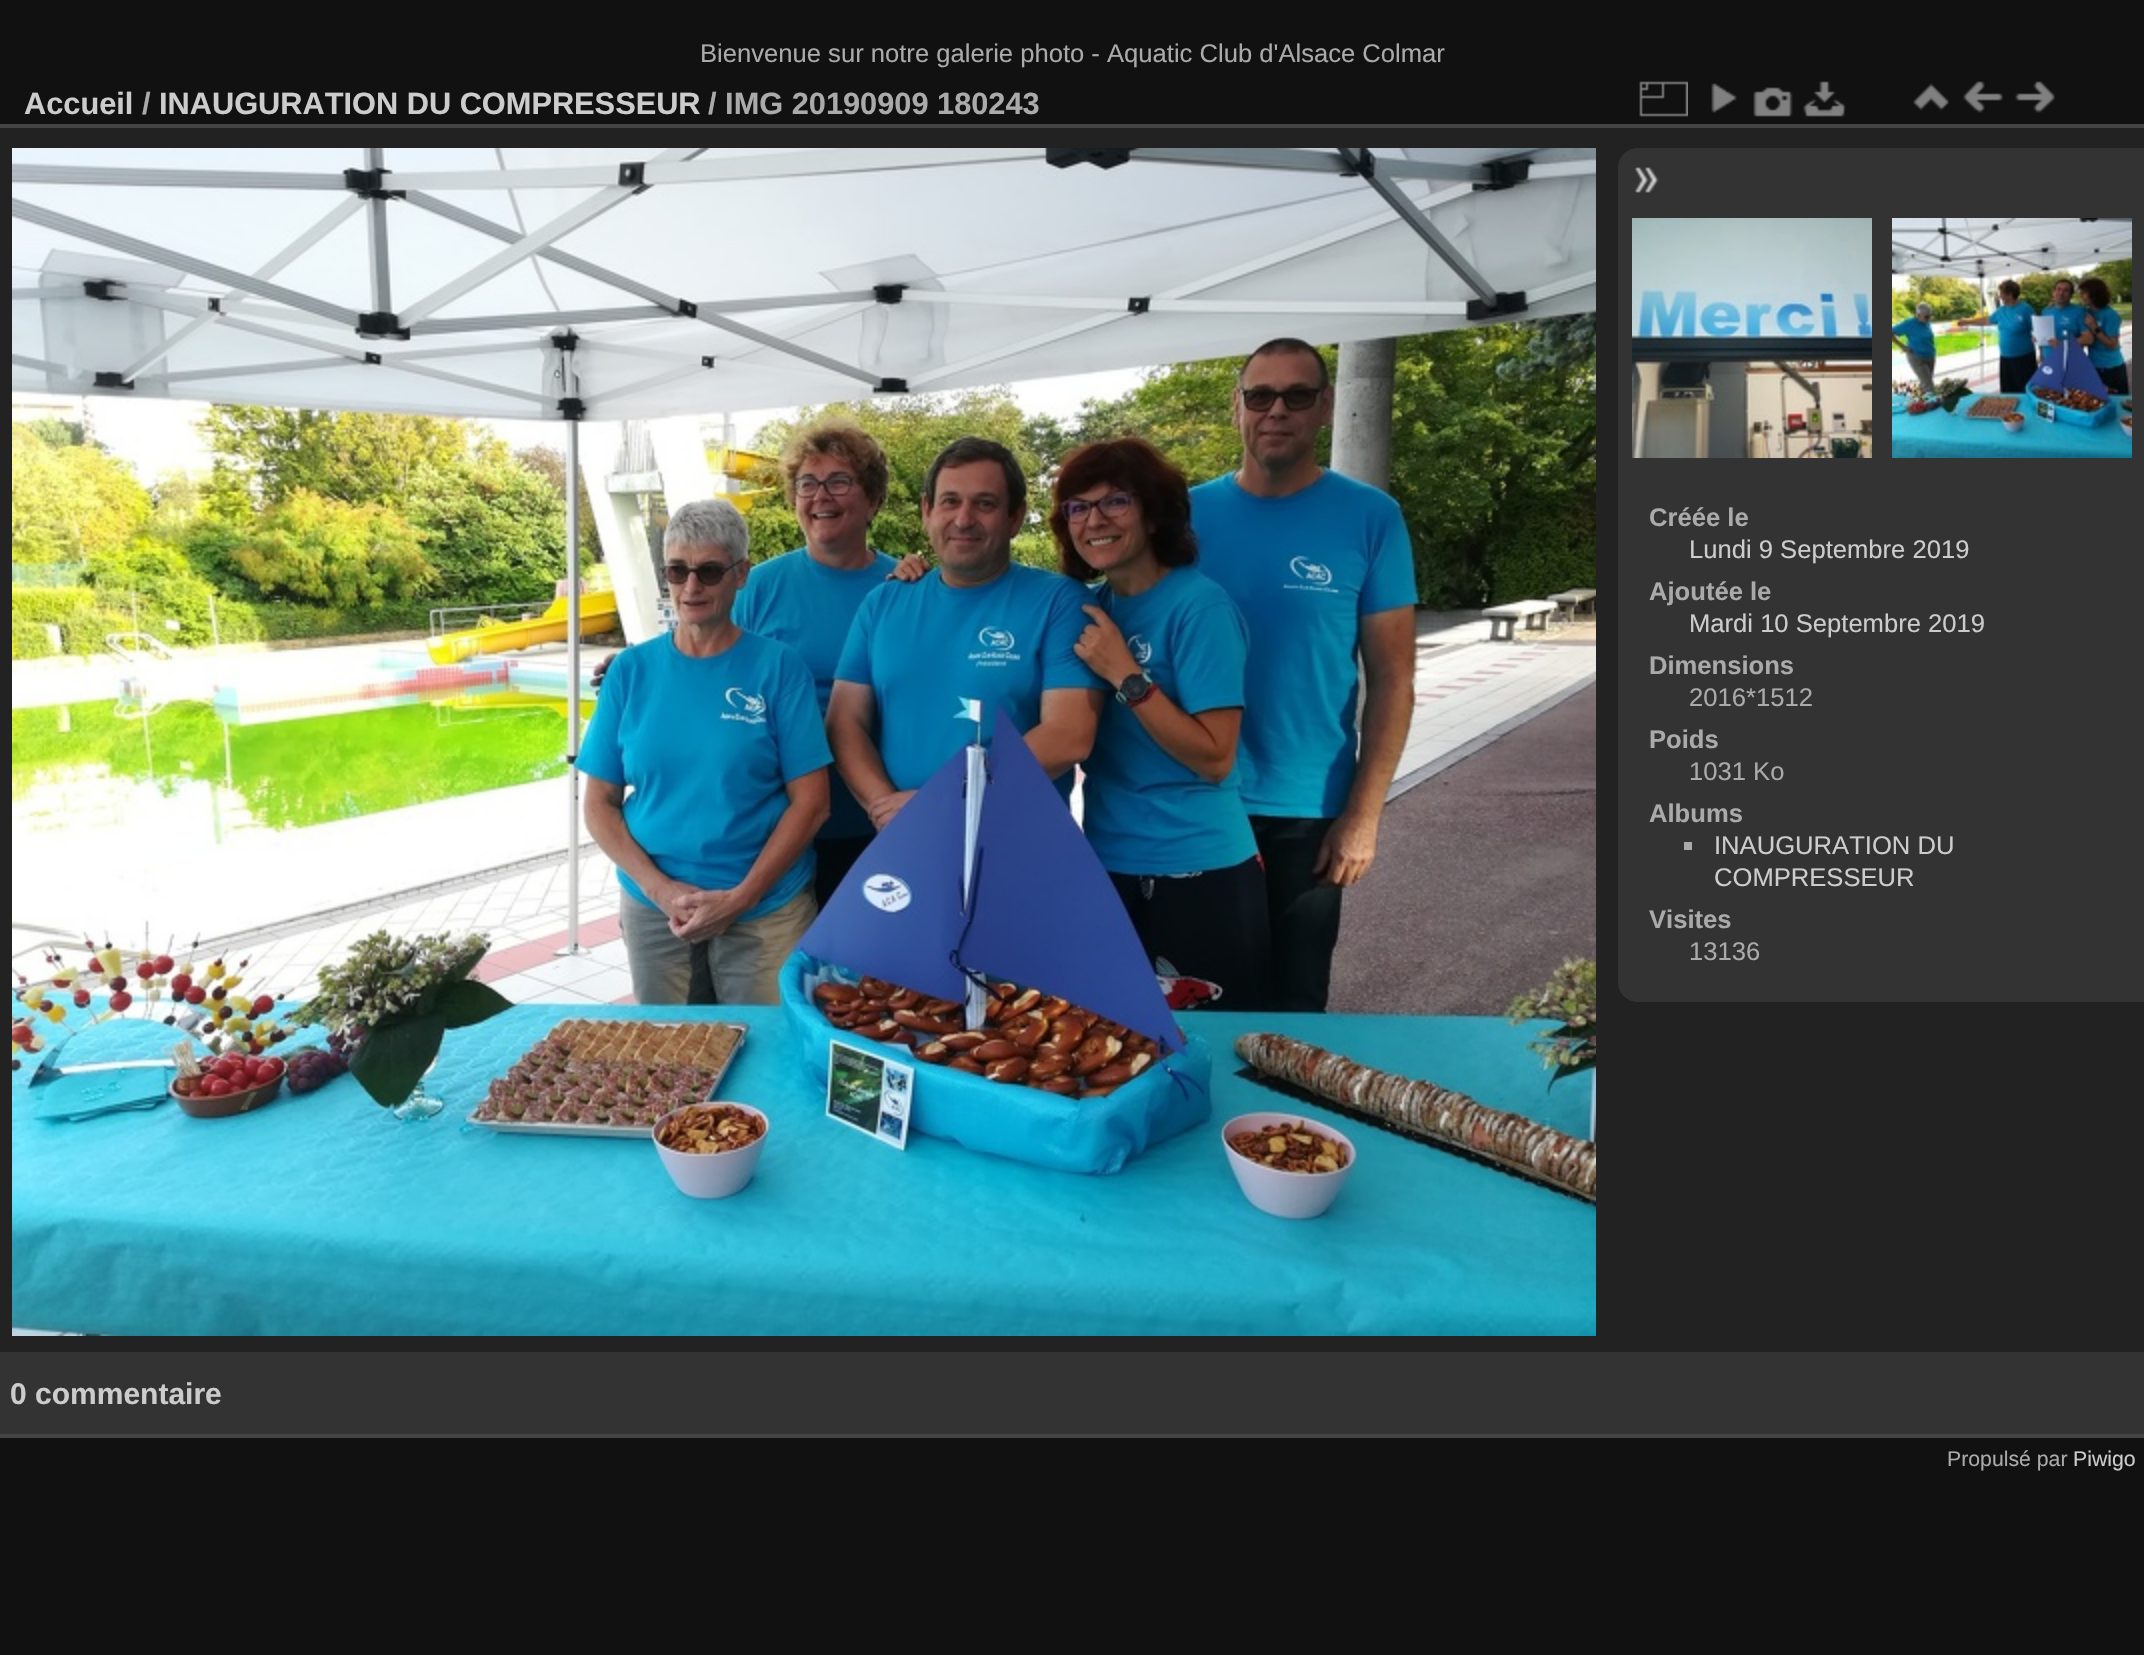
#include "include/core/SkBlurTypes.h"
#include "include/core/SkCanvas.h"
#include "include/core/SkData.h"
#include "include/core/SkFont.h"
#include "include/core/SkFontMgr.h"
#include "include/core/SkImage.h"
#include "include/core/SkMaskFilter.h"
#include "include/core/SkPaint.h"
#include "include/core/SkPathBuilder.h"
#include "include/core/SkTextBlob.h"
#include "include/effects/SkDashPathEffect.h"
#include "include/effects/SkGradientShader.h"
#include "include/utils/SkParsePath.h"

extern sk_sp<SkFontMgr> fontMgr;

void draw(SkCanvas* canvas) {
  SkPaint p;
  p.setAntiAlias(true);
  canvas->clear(SkColorSetRGB(17, 17, 17));
  p.setColor(SkColorSetRGB(34, 34, 34));
  canvas->drawRect(SkRect::MakeLTRB(0, 128, 2144, 1352), p);
  p.setColor(SkColorSetRGB(68, 68, 68));
  canvas->drawRect(SkRect::MakeLTRB(0, 1434, 2144, 1438), p);
  canvas->drawRect(SkRect::MakeLTRB(0, 124, 2144, 128), p);
  canvas->drawImageRect(SkImages::DeferredFromEncodedData(SkData::MakeFromFileName("images/1.png")), SkRect::MakeLTRB(1639, 81, 1688, 117), SkSamplingOptions());
  canvas->drawImageRect(SkImages::DeferredFromEncodedData(SkData::MakeFromFileName("images/2.png")), SkRect::MakeLTRB(1711, 83, 1737, 113), SkSamplingOptions());
  canvas->drawImageRect(SkImages::DeferredFromEncodedData(SkData::MakeFromFileName("images/3.png")), SkRect::MakeLTRB(1753, 87, 1793, 117), SkSamplingOptions());
  canvas->drawImageRect(SkImages::DeferredFromEncodedData(SkData::MakeFromFileName("images/4.png")), SkRect::MakeLTRB(1803, 81, 1846, 117), SkSamplingOptions());
  canvas->drawImageRect(SkImages::DeferredFromEncodedData(SkData::MakeFromFileName("images/5.png")), SkRect::MakeLTRB(1913, 83, 1949, 111), SkSamplingOptions());
  canvas->drawImageRect(SkImages::DeferredFromEncodedData(SkData::MakeFromFileName("images/6.png")), SkRect::MakeLTRB(1963, 81, 2003, 113), SkSamplingOptions());
  canvas->drawImageRect(SkImages::DeferredFromEncodedData(SkData::MakeFromFileName("images/7.png")), SkRect::MakeLTRB(2015, 81, 2055, 113), SkSamplingOptions());
  canvas->drawImageRect(SkImages::DeferredFromEncodedData(SkData::MakeFromFileName("images/8.png")), SkRect::MakeLTRB(12, 148, 1596, 1336), SkSamplingOptions());
  p.setColor(SkColorSetRGB(51, 51, 51));
  canvas->drawPath(SkPathBuilder().moveTo(1638, 148).lineTo(2144, 148).lineTo(2144, 1002).lineTo(1638, 1002).cubicTo(1627, 1002, 1618, 993, 1618, 982).lineTo(1618, 168).cubicTo(1618, 157, 1627, 148, 1638, 148).close().detach(), p);
  canvas->drawImageRect(SkImages::DeferredFromEncodedData(SkData::MakeFromFileName("images/9.png")), SkRect::MakeLTRB(1635, 167, 1659, 193), SkSamplingOptions());
  canvas->drawImageRect(SkImages::DeferredFromEncodedData(SkData::MakeFromFileName("images/10.png")), SkRect::MakeLTRB(1632, 218, 1872, 458), SkSamplingOptions());
  canvas->drawImageRect(SkImages::DeferredFromEncodedData(SkData::MakeFromFileName("images/11.png")), SkRect::MakeLTRB(1892, 218, 2132, 458), SkSamplingOptions());
  p.setColor(SkColorSetRGB(170, 170, 170));
  canvas->drawRect(SkRect::MakeLTRB(1684, 842, 1692, 850), p);
  p.setColor(SkColorSetRGB(51, 51, 51));
  canvas->drawRect(SkRect::MakeLTRB(0, 1352, 2144, 1434), p);
  SkFont font1(fontMgr->matchFamilyStyle("Liberation Sans", SkFontStyle::Normal()), 25.6f);
  font1.setSubpixel(true);
  p.setColor(SkColorSetRGB(170, 170, 170));
  canvas->drawString("Bienvenue sur notre galerie photo - Aquatic Club d'Alsace Colmar", 700, 62, font1, p);
  SkFont font2(fontMgr->matchFamilyStyle("Liberation Sans", SkFontStyle::Bold()), 30.75f);
  font2.setSubpixel(true);
  p.setColor(SkColorSetRGB(204, 204, 204));
  canvas->drawString("Accueil", 24, 114, font2, p);
  p.setColor(SkColorSetRGB(170, 170, 170));
  canvas->drawString("/", 142, 114, font2, p);
  p.setColor(SkColorSetRGB(204, 204, 204));
  canvas->drawString("INAUGURATION DU COMPRESSEUR", 159, 114, font2, p);
  p.setColor(SkColorSetRGB(170, 170, 170));
  canvas->drawString("/ IMG 20190909 180243", 708, 114, font2, p);
  SkFont font3(fontMgr->matchFamilyStyle("Liberation Sans", SkFontStyle::Bold()), 25.6f);
  font3.setSubpixel(true);
  canvas->drawString("Créée le", 1649, 526, font3, p);
  p.setColor(SkColorSetRGB(204, 204, 204));
  canvas->drawString("Lundi 9 Septembre 2019", 1689, 558, font1, p);
  p.setColor(SkColorSetRGB(170, 170, 170));
  canvas->drawString("Ajoutée le", 1649, 600, font3, p);
  p.setColor(SkColorSetRGB(204, 204, 204));
  canvas->drawString("Mardi 10 Septembre 2019", 1689, 632, font1, p);
  p.setColor(SkColorSetRGB(170, 170, 170));
  canvas->drawString("Dimensions", 1649, 674, font3, p);
  canvas->drawString("2016*1512", 1689, 706, font1, p);
  canvas->drawString("Poids", 1649, 748, font3, p);
  canvas->drawString("1031 Ko", 1689, 780, font1, p);
  canvas->drawString("Albums", 1649, 822, font3, p);
  p.setColor(SkColorSetRGB(204, 204, 204));
  canvas->drawString("INAUGURATION DU", 1714, 854, font1, p);
  canvas->drawString("COMPRESSEUR", 1714, 886, font1, p);
  p.setColor(SkColorSetRGB(170, 170, 170));
  canvas->drawString("Visites", 1649, 928, font3, p);
  canvas->drawString("13136", 1689, 960, font1, p);
  SkFont font4(fontMgr->matchFamilyStyle("Liberation Sans", SkFontStyle::Bold()), 30);
  font4.setSubpixel(true);
  p.setColor(SkColorSetRGB(204, 204, 204));
  canvas->drawString("0 commentaire", 10, 1404, font4, p);
  SkFont font5(fontMgr->matchFamilyStyle("Liberation Sans", SkFontStyle::Normal()), 21.25f);
  font5.setSubpixel(true);
  p.setColor(SkColorSetRGB(170, 170, 170));
  canvas->drawString("Propulsé par", 1947, 1466, font5, p);
  p.setColor(SkColorSetRGB(204, 204, 204));
  canvas->drawString("Piwigo", 2073, 1466, font5, p);
}
